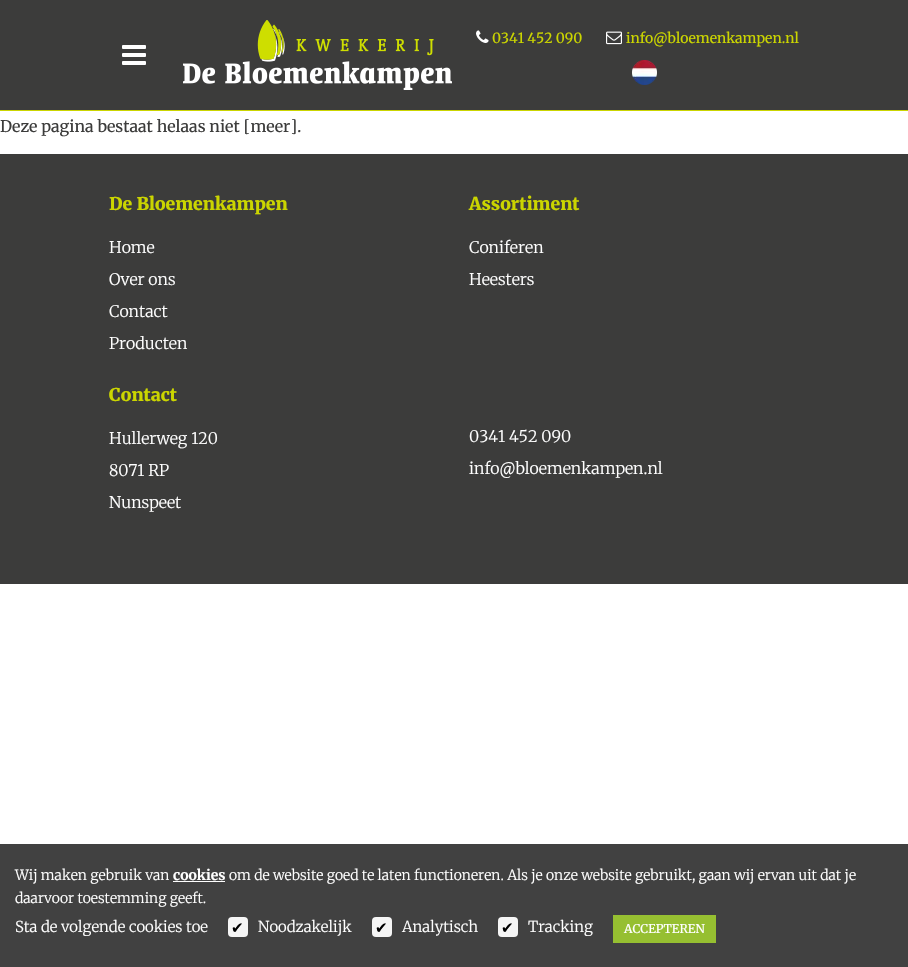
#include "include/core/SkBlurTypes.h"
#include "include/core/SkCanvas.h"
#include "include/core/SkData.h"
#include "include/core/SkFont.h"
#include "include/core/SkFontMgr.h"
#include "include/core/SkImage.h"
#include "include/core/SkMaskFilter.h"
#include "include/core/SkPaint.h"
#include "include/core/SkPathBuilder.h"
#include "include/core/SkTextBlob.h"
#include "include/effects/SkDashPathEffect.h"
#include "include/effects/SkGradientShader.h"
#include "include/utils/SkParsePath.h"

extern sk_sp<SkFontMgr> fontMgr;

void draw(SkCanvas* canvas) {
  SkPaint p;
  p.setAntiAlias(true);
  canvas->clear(SK_ColorWHITE);
  p.setColor(SkColorSetRGB(60, 60, 59));
  canvas->drawRect(SkRect::MakeLTRB(0, 0, 908, 110), p);
  canvas->drawImageRect(SkImages::DeferredFromEncodedData(SkData::MakeFromFileName("images/1.png")), SkRect::MakeLTRB(183, 20, 452, 90), SkSamplingOptions());
  canvas->drawImageRect(SkImages::DeferredFromEncodedData(SkData::MakeFromFileName("images/2.png")), SkRect::MakeLTRB(476, 30, 489, 43), SkSamplingOptions());
  canvas->drawImageRect(SkImages::DeferredFromEncodedData(SkData::MakeFromFileName("images/3.png")), SkRect::MakeLTRB(606, 31, 622, 45), SkSamplingOptions());
  canvas->drawImageRect(SkImages::DeferredFromEncodedData(SkData::MakeFromFileName("images/4.png")), SkRect::MakeLTRB(632, 60, 657, 85), SkSamplingOptions());
  canvas->drawImageRect(SkImages::DeferredFromEncodedData(SkData::MakeFromFileName("images/5.png")), SkRect::MakeLTRB(122, 45, 146, 65), SkSamplingOptions());
  p.setColor(SkColorSetRGB(203, 213, 0));
  canvas->drawRect(SkRect::MakeLTRB(0, 110, 908, 111), p);
  p.setColor(SkColorSetRGB(60, 60, 59));
  canvas->drawRect(SkRect::MakeLTRB(0, 154, 908, 584), p);
  p.setColor(SkColorSetRGB(65, 65, 65));
  canvas->drawRect(SkRect::MakeLTRB(0, 844, 908, 967), p);
  p.setColor(SK_ColorWHITE);
  canvas->drawRect(SkRect::MakeLTRB(173, 881, 225, 882), p);
  p.setColor(SkColorSetRGB(245, 245, 245));
  canvas->drawRoundRect(SkRect::MakeLTRB(228, 917, 248, 937), 4, 4, p);
  canvas->drawRoundRect(SkRect::MakeLTRB(372, 917, 392, 937), 4, 4, p);
  canvas->drawRoundRect(SkRect::MakeLTRB(498, 917, 518, 937), 4, 4, p);
  p.setColor(SkColorSetRGB(150, 191, 49));
  canvas->drawRect(SkRect::MakeLTRB(613, 915, 716, 943), p);
  SkFont font1(fontMgr->matchFamilyStyle("Merriweather", SkFontStyle::Normal()), 14);
  font1.setSubpixel(true);
  p.setColor(SkColorSetRGB(203, 213, 0));
  canvas->drawString("0341 452 090", 492, 43, font1, p);
  canvas->drawString("info@bloemenkampen.nl", 626, 43, font1, p);
  SkFont font2(fontMgr->matchFamilyStyle("Merriweather", SkFontStyle::Normal()), 16);
  font2.setSubpixel(true);
  p.setColor(SkColorSetRGB(60, 60, 59));
  canvas->drawString("Deze pagina bestaat helaas niet [meer].", 0, 132, font2, p);
  SkFont font3(fontMgr->matchFamilyStyle("Merriweather", SkFontStyle(900, SkFontStyle::kNormal_Width, SkFontStyle::kUpright_Slant)), 17.6f);
  font3.setSubpixel(true);
  p.setColor(SkColorSetRGB(203, 213, 0));
  canvas->drawString("De Bloemenkampen", 109, 210, font3, p);
  SkFont font4(fontMgr->matchFamilyStyle("Merriweather", SkFontStyle(300, SkFontStyle::kNormal_Width, SkFontStyle::kUpright_Slant)), 16);
  font4.setSubpixel(true);
  p.setColor(SK_ColorWHITE);
  canvas->drawString("Home", 109, 253, font4, p);
  canvas->drawString("Over ons", 109, 285, font4, p);
  canvas->drawString("Contact", 109, 317, font4, p);
  canvas->drawString("Producten", 109, 349, font4, p);
  p.setColor(SkColorSetRGB(203, 213, 0));
  canvas->drawString("Assortiment", 469, 210, font3, p);
  p.setColor(SK_ColorWHITE);
  canvas->drawString("Coniferen", 469, 253, font4, p);
  canvas->drawString("Heesters", 469, 285, font4, p);
  p.setColor(SkColorSetRGB(203, 213, 0));
  canvas->drawString("Contact", 109, 401, font3, p);
  p.setColor(SK_ColorWHITE);
  canvas->drawString("Hullerweg 120", 109, 444, font4, p);
  canvas->drawString("8071 RP", 109, 476, font4, p);
  canvas->drawString("Nunspeet", 109, 508, font4, p);
  canvas->drawString("0341 452 090", 469, 442, font4, p);
  canvas->drawString("info@bloemenkampen.nl", 469, 474, font4, p);
  SkFont font5(fontMgr->matchFamilyStyle("Merriweather", SkFontStyle(300, SkFontStyle::kNormal_Width, SkFontStyle::kUpright_Slant)), 14);
  font5.setSubpixel(true);
  canvas->drawString("Wij maken gebruik van", 15, 880, font5, p);
  SkFont font6(fontMgr->matchFamilyStyle("Merriweather", SkFontStyle::Bold()), 14);
  font6.setSubpixel(true);
  canvas->drawString("cookies", 173, 880, font6, p);
  canvas->drawString("om de website goed te laten functioneren. Als je onze website gebruikt, gaan wij ervan uit dat je", 229, 880, font5, p);
  canvas->drawString("daarvoor toestemming geeft.", 15, 903, font5, p);
  SkFont font7(fontMgr->matchFamilyStyle("Merriweather", SkFontStyle(300, SkFontStyle::kNormal_Width, SkFontStyle::kUpright_Slant)), 15);
  font7.setSubpixel(true);
  canvas->drawString("Sta de volgende cookies toe", 15, 932, font7, p);
  canvas->drawString("Noodzakelijk", 258, 932, font7, p);
  SkFont font8(fontMgr->matchFamilyStyle("DejaVu Sans", SkFontStyle::Normal()), 15);
  font8.setSubpixel(true);
  p.setColor(SK_ColorBLACK);
  canvas->drawString("✔", 231, 933, font8, p);
  p.setColor(SK_ColorWHITE);
  canvas->drawString("Analytisch", 402, 932, font7, p);
  p.setColor(SK_ColorBLACK);
  canvas->drawString("✔", 375, 933, font8, p);
  p.setColor(SK_ColorWHITE);
  canvas->drawString("Tracking", 528, 932, font7, p);
  p.setColor(SK_ColorBLACK);
  canvas->drawString("✔", 501, 933, font8, p);
  SkFont font9(fontMgr->matchFamilyStyle("Merriweather", SkFontStyle::Normal()), 12);
  font9.setSubpixel(true);
  p.setColor(SK_ColorWHITE);
  canvas->drawString("ACCEPTEREN", 624, 933, font9, p);
}
